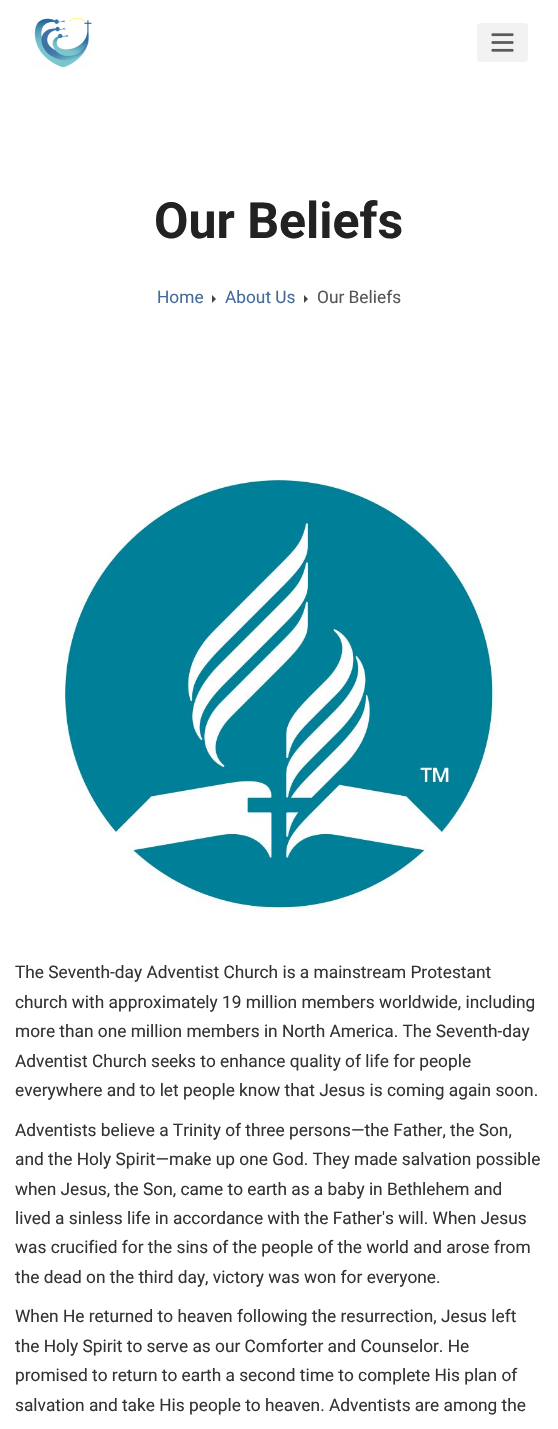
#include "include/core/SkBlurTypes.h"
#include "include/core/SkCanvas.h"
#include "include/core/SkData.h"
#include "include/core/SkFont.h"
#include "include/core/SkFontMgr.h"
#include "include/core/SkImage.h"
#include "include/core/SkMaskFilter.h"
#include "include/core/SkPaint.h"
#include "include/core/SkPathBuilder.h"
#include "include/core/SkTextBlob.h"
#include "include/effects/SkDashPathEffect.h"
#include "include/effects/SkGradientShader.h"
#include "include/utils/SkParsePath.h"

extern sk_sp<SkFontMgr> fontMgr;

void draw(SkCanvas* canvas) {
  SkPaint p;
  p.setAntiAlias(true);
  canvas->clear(SK_ColorWHITE);
  canvas->drawImageRect(SkImages::DeferredFromEncodedData(SkData::MakeFromFileName("images/1.png")), SkRect::MakeLTRB(34, 18, 92, 68), SkSamplingOptions());
  p.setColor(SkColorSetRGB(242, 242, 242));
  canvas->drawRoundRect(SkRect::MakeLTRB(477, 23, 528, 62), 4, 4, p);
  canvas->drawImageRect(SkImages::DeferredFromEncodedData(SkData::MakeFromFileName("images/2.png")), SkRect::MakeLTRB(491, 33, 514, 52), SkSamplingOptions());
  p.setColor(SkColorSetRGB(68, 68, 68));
  canvas->drawPath(SkPathBuilder().moveTo(212, 303).lineTo(212, 295).lineTo(216, 299).close().detach(), p);
  canvas->drawPath(SkPathBuilder().moveTo(304, 303).lineTo(304, 295).lineTo(308, 299).close().detach(), p);
  canvas->drawImageRect(SkImages::DeferredFromEncodedData(SkData::MakeFromFileName("images/3.png")), SkRect::MakeLTRB(64, 479, 498, 913), SkSamplingOptions());
  SkFont font1(fontMgr->matchFamilyStyle("Roboto", SkFontStyle::Bold()), 50);
  font1.setSubpixel(true);
  p.setColor(SkColorSetRGB(34, 34, 34));
  canvas->drawString("Our Beliefs", 154, 238, font1, p);
  SkFont font2(fontMgr->matchFamilyStyle("Roboto", SkFontStyle::Normal()), 17.3f);
  font2.setSubpixel(true);
  p.setColor(SkColorSetRGB(69, 107, 152));
  canvas->drawString("Home", 157, 303, font2, p);
  canvas->drawString("About Us", 225, 303, font2, p);
  p.setColor(SkColorSetRGB(85, 85, 85));
  canvas->drawString("Our Beliefs", 317, 303, font2, p);
  p.setColor(SkColorSetRGB(51, 51, 51));
  canvas->drawString("The Seventh-day Adventist Church is a mainstream Protestant", 15, 978, font2, p);
  canvas->drawString("church with approximately 19 million members worldwide, including", 15, 1008, font2, p);
  canvas->drawString("more than one million members in North America. The Seventh-day", 15, 1037, font2, p);
  canvas->drawString("Adventist Church seeks to enhance quality of life for people", 15, 1067, font2, p);
  canvas->drawString("everywhere and to let people know that Jesus is coming again soon.", 15, 1096, font2, p);
  canvas->drawString("Adventists believe a Trinity of three persons—the Father, the Son,", 15, 1136, font2, p);
  canvas->drawString("and the Holy Spirit—make up one God. They made salvation possible", 15, 1165, font2, p);
  canvas->drawString("when Jesus, the Son, came to earth as a baby in Bethlehem and", 15, 1195, font2, p);
  canvas->drawString("lived a sinless life in accordance with the Father's will. When Jesus", 15, 1224, font2, p);
  canvas->drawString("was crucified for the sins of the people of the world and arose from", 15, 1253, font2, p);
  canvas->drawString("the dead on the third day, victory was won for everyone.", 15, 1283, font2, p);
  canvas->drawString("When He returned to heaven following the resurrection, Jesus left", 15, 1322, font2, p);
  canvas->drawString("the Holy Spirit to serve as our Comforter and Counselor. He", 15, 1352, font2, p);
  canvas->drawString("promised to return to earth a second time to complete His plan of", 15, 1381, font2, p);
  canvas->drawString("salvation and take His people to heaven. Adventists are among the", 15, 1411, font2, p);
}
